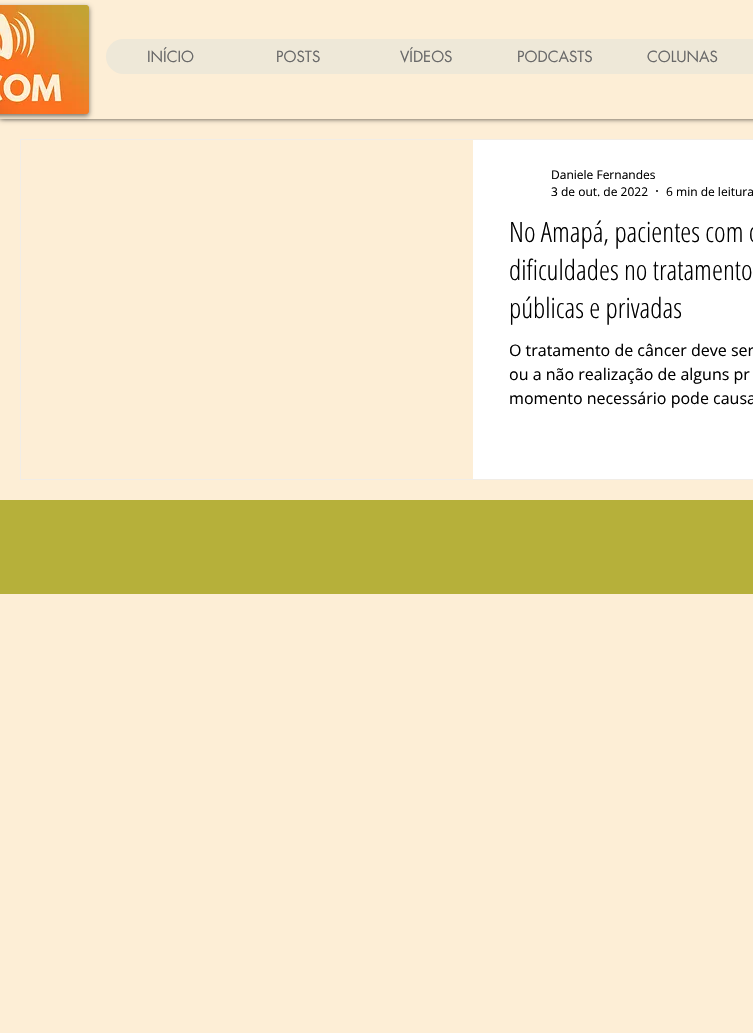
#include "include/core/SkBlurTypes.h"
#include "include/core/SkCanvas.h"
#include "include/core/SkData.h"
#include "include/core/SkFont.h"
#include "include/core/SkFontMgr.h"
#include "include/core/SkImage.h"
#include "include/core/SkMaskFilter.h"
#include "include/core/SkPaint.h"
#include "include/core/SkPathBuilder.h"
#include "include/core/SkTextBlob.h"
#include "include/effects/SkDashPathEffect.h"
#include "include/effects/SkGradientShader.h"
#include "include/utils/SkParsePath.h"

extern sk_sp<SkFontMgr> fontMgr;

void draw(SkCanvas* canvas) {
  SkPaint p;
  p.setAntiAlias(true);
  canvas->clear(SkColorSetRGB(253, 238, 214));
  p.setColor(SkColorSetARGB(179, 0, 0, 0));
  p.setMaskFilter(SkMaskFilter::MakeBlur(kNormal_SkBlurStyle, 2.5f));
  canvas->drawRect(SkRect::MakeLTRB(0, 0, 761, 119), p);
  p.setMaskFilter(nullptr);
  p.setColor(SkColorSetRGB(253, 238, 214));
  canvas->drawRect(SkRect::MakeLTRB(0, 0, 753, 119), p);
  p.setColor(SkColorSetARGB(135, 0, 0, 0));
  p.setMaskFilter(SkMaskFilter::MakeBlur(kNormal_SkBlurStyle, 2.5f));
  canvas->drawRoundRect(SkRect::MakeLTRB(-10, 7, 89, 116), 2, 2, p);
  p.setMaskFilter(nullptr);
  canvas->drawImageRect(SkImages::DeferredFromEncodedData(SkData::MakeFromFileName("images/1.png")), SkRect::MakeLTRB(0, 5, 89, 114), SkSamplingOptions());
  p.setColor(SkColorSetRGB(238, 232, 216));
  canvas->drawRoundRect(SkRect::MakeLTRB(106, 39, 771, 74), 17.5f, 17.5f, p);
  p.setStyle(SkPaint::kStroke_Style);
  p.setStrokeWidth(1);
  p.setColor(SkColorSetRGB(241, 237, 231));
  canvas->drawRect(SkRect::MakeLTRB(20.5f, 139.5f, 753.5f, 479.5f), p);
  p.setStyle(SkPaint::kFill_Style);
  p.setColor(SK_ColorWHITE);
  canvas->drawRect(SkRect::MakeLTRB(473, 140, 753, 479), p);
  p.setColor(SK_ColorBLACK);
  canvas->drawCircle(657, 191, 1, p);
  p.setColor(SkColorSetRGB(182, 176, 58));
  canvas->drawRect(SkRect::MakeLTRB(0, 500, 753, 594), p);
  SkFont font1(fontMgr->matchFamilyStyle("futura", SkFontStyle::Normal()), 15);
  font1.setSubpixel(true);
  p.setColor(SkColorSetRGB(105, 105, 105));
  canvas->drawString("INÍCIO", 147, 62, font1, p);
  canvas->drawString("POSTS", 276, 62, font1, p);
  canvas->drawString("VÍDEOS", 400, 62, font1, p);
  canvas->drawString("PODCASTS", 517, 62, font1, p);
  canvas->drawString("COLUNAS", 647, 62, font1, p);
  SkFont font2(fontMgr->matchFamilyStyle("Open Sans", SkFontStyle::Normal()), 12);
  font2.setSubpixel(true);
  p.setColor(SK_ColorBLACK);
  canvas->drawString("Daniele Fernandes", 551, 179, font2, p);
  canvas->drawString("3 de out. de 2022", 551, 196, font2, p);
  canvas->drawString("6 min de leitura", 666, 196, font2, p);
  SkFont font3(fontMgr->matchFamilyStyle("Open Sans Condensed", SkFontStyle(300, SkFontStyle::kNormal_Width, SkFontStyle::kUpright_Slant)), 28);
  font3.setSubpixel(true);
  canvas->drawString("No Amapá, pacientes com c", 509, 242, font3, p);
  canvas->drawString("dificuldades no tratamento", 509, 280, font3, p);
  canvas->drawString("públicas e privadas", 509, 318, font3, p);
  SkFont font4(fontMgr->matchFamilyStyle("Open Sans", SkFontStyle::Normal()), 16);
  font4.setSubpixel(true);
  canvas->drawString("O tratamento de câncer deve ser", 509, 356, font4, p);
  canvas->drawString("ou a não realização de alguns pr", 509, 380, font4, p);
  canvas->drawString("momento necessário pode causa", 509, 404, font4, p);
}
